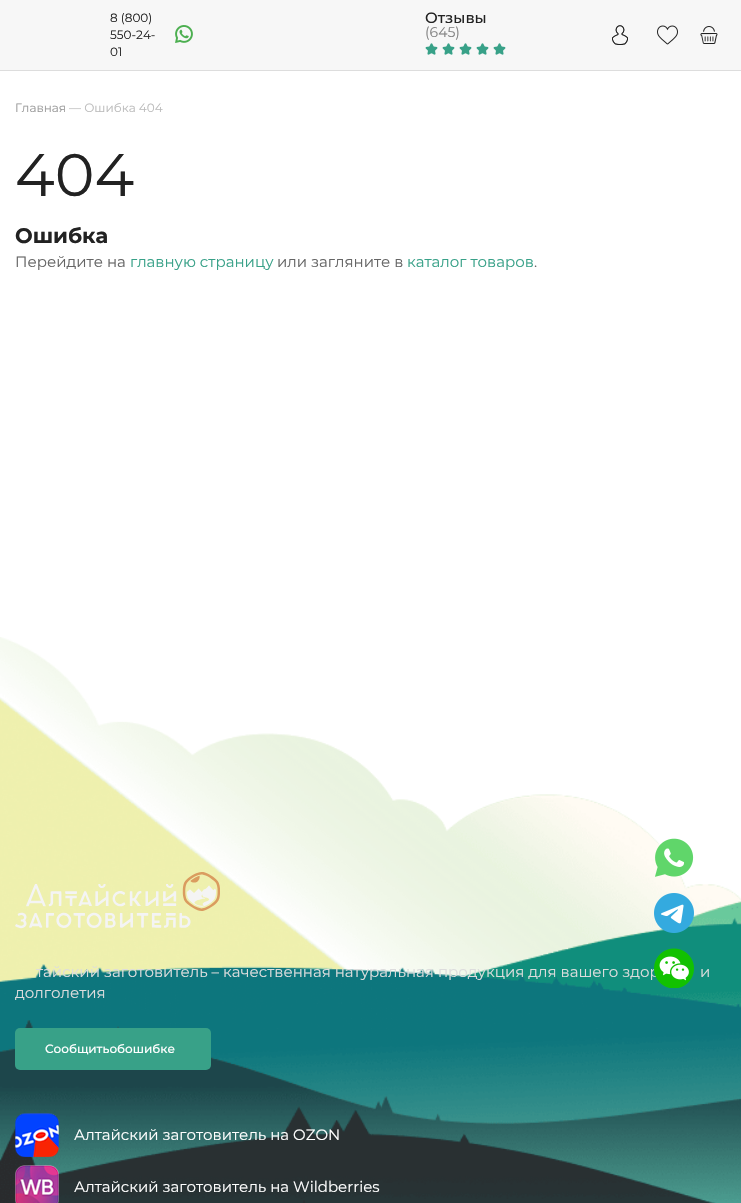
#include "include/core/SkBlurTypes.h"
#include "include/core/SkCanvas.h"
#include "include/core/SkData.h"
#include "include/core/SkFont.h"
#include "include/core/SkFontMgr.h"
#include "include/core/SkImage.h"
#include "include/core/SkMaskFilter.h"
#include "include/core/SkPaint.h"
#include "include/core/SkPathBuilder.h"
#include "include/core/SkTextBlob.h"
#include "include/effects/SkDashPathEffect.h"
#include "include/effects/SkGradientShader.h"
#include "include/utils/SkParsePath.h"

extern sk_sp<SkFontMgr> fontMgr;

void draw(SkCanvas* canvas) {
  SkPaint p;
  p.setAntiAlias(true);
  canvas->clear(SK_ColorWHITE);
  p.setColor(SkColorSetRGB(247, 247, 247));
  canvas->drawRect(SkRect::MakeLTRB(0, 0, 741, 70), p);
  p.setColor(SkColorSetRGB(221, 221, 221));
  canvas->drawRect(SkRect::MakeLTRB(0, 70, 741, 71), p);
  canvas->drawImageRect(SkImages::DeferredFromEncodedData(SkData::MakeFromFileName("images/1.png")), SkRect::MakeLTRB(175, 25, 193, 43), SkSamplingOptions());
  canvas->drawImageRect(SkImages::DeferredFromEncodedData(SkData::MakeFromFileName("images/2.png")), SkRect::MakeLTRB(425, 43, 438, 55), SkSamplingOptions());
  canvas->drawImageRect(SkImages::DeferredFromEncodedData(SkData::MakeFromFileName("images/2.png")), SkRect::MakeLTRB(442, 43, 455, 55), SkSamplingOptions());
  canvas->drawImageRect(SkImages::DeferredFromEncodedData(SkData::MakeFromFileName("images/2.png")), SkRect::MakeLTRB(459, 43, 472, 55), SkSamplingOptions());
  canvas->drawImageRect(SkImages::DeferredFromEncodedData(SkData::MakeFromFileName("images/2.png")), SkRect::MakeLTRB(476, 43, 489, 55), SkSamplingOptions());
  canvas->drawImageRect(SkImages::DeferredFromEncodedData(SkData::MakeFromFileName("images/2.png")), SkRect::MakeLTRB(493, 43, 506, 55), SkSamplingOptions());
  canvas->drawImageRect(SkImages::DeferredFromEncodedData(SkData::MakeFromFileName("images/3.png")), SkRect::MakeLTRB(612, 25, 628, 45), SkSamplingOptions());
  canvas->drawImageRect(SkImages::DeferredFromEncodedData(SkData::MakeFromFileName("images/4.png")), SkRect::MakeLTRB(657, 25, 678, 45), SkSamplingOptions());
  canvas->drawImageRect(SkImages::DeferredFromEncodedData(SkData::MakeFromFileName("images/5.png")), SkRect::MakeLTRB(700, 26, 718, 44), SkSamplingOptions());
  canvas->drawImageRect(SkImages::DeferredFromEncodedData(SkData::MakeFromFileName("images/9.png")), SkRect::MakeLTRB(0, 637, 741, 1203), SkSamplingOptions());
  canvas->drawImageRect(SkImages::DeferredFromEncodedData(SkData::MakeFromFileName("images/6.png")), SkRect::MakeLTRB(655, 838, 694, 877), SkSamplingOptions());
  canvas->drawImageRect(SkImages::DeferredFromEncodedData(SkData::MakeFromFileName("images/7.png")), SkRect::MakeLTRB(654, 893, 694, 933), SkSamplingOptions());
  canvas->drawImageRect(SkImages::DeferredFromEncodedData(SkData::MakeFromFileName("images/10.png")), SkRect::MakeLTRB(15, 872, 220, 929), SkSamplingOptions());
  p.setColor(SkColorSetRGB(56, 161, 136));
  canvas->drawRoundRect(SkRect::MakeLTRB(15, 1028, 211, 1070), 5, 5, p);
  canvas->drawImageRect(SkImages::DeferredFromEncodedData(SkData::MakeFromFileName("images/11.png")), SkRect::MakeLTRB(15, 1113, 59, 1157), SkSamplingOptions());
  canvas->drawImageRect(SkImages::DeferredFromEncodedData(SkData::MakeFromFileName("images/12.png")), SkRect::MakeLTRB(15, 1165, 59, 1203), SkSamplingOptions());
  SkFont font1(fontMgr->matchFamilyStyle("Montserrat", SkFontStyle::Normal()), 12);
  font1.setSubpixel(true);
  p.setColor(SkColorSetRGB(34, 34, 34));
  canvas->drawString("8 (800)", 110, 22, font1, p);
  canvas->drawString("550-24-", 110, 39, font1, p);
  canvas->drawString("01", 110, 56, font1, p);
  SkFont font2(fontMgr->matchFamilyStyle("Montserrat", SkFontStyle(500, SkFontStyle::kNormal_Width, SkFontStyle::kUpright_Slant)), 15);
  font2.setSubpixel(true);
  canvas->drawString("Отзывы", 425, 23, font2, p);
  SkFont font3(fontMgr->matchFamilyStyle("Montserrat", SkFontStyle::Normal()), 14);
  font3.setSubpixel(true);
  p.setColor(SkColorSetRGB(131, 131, 131));
  canvas->drawString("(645)", 425, 37, font3, p);
  p.setColor(SkColorSetRGB(153, 153, 153));
  canvas->drawString("Главная", 15, 112, font1, p);
  p.setColor(SkColorSetRGB(187, 187, 187));
  canvas->drawString("— Ошибка 404", 69, 112, font1, p);
  SkFont font4(fontMgr->matchFamilyStyle("Montserrat", SkFontStyle::Normal()), 60);
  font4.setSubpixel(true);
  p.setColor(SkColorSetRGB(34, 34, 34));
  canvas->drawString("404", 15, 196, font4, p);
  SkFont font5(fontMgr->matchFamilyStyle("Montserrat", SkFontStyle::Bold()), 21);
  font5.setSubpixel(true);
  canvas->drawString("Ошибка", 15, 243, font5, p);
  SkFont font6(fontMgr->matchFamilyStyle("Montserrat", SkFontStyle::Normal()), 15);
  font6.setSubpixel(true);
  p.setColor(SkColorSetRGB(101, 101, 101));
  canvas->drawString("Перейдите на", 15, 267, font6, p);
  p.setColor(SkColorSetRGB(56, 161, 136));
  canvas->drawString("главную страницу", 130, 267, font6, p);
  p.setColor(SkColorSetRGB(101, 101, 101));
  canvas->drawString("или загляните в", 277, 267, font6, p);
  p.setColor(SkColorSetRGB(56, 161, 136));
  canvas->drawString("каталог товаров", 407, 267, font6, p);
  p.setColor(SkColorSetRGB(101, 101, 101));
  canvas->drawString(".", 534, 267, font6, p);
  p.setColor(SkColorSetRGB(221, 221, 221));
  canvas->drawString("тайский заготовитель – качественная натуральная продукция для вашего здор", 36, 977, font6, p);
  canvas->drawImageRect(SkImages::DeferredFromEncodedData(SkData::MakeFromFileName("images/8.png")), SkRect::MakeLTRB(654, 948, 694, 988), SkSamplingOptions());
  canvas->drawString("и", 700, 977, font6, p);
  canvas->drawString("долголетия", 15, 998, font6, p);
  SkFont font7(fontMgr->matchFamilyStyle("Montserrat", SkFontStyle(500, SkFontStyle::kNormal_Width, SkFontStyle::kUpright_Slant)), 12);
  font7.setSubpixel(true);
  p.setColor(SK_ColorWHITE);
  canvas->drawString("Сообщить об ошибке", 45, 1053, font7, p);
  canvas->drawString("Алтайский заготовитель на OZON", 74, 1140, font6, p);
  canvas->drawString("Алтайский заготовитель на Wildberries", 74, 1192, font6, p);
}
